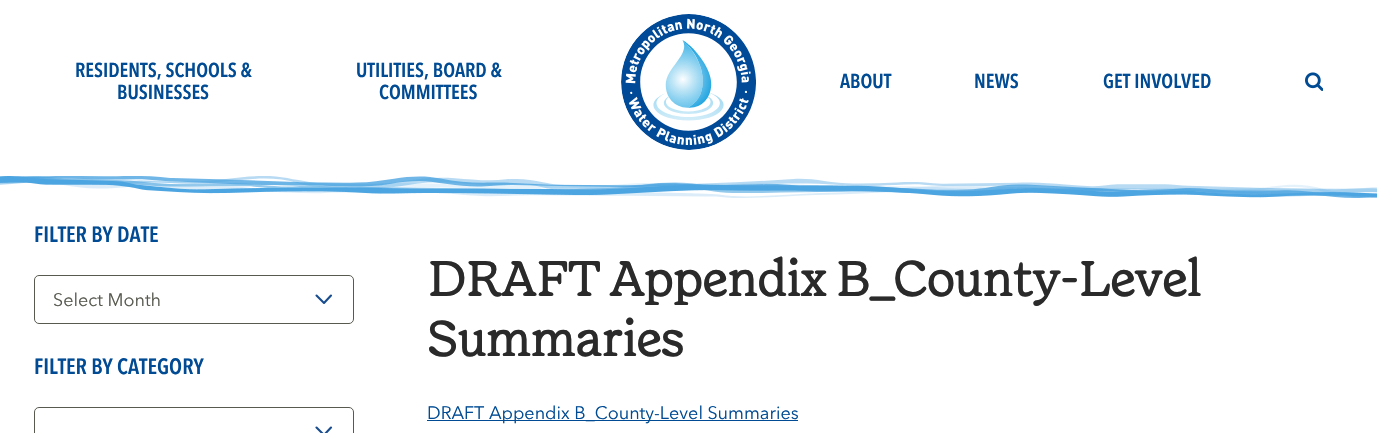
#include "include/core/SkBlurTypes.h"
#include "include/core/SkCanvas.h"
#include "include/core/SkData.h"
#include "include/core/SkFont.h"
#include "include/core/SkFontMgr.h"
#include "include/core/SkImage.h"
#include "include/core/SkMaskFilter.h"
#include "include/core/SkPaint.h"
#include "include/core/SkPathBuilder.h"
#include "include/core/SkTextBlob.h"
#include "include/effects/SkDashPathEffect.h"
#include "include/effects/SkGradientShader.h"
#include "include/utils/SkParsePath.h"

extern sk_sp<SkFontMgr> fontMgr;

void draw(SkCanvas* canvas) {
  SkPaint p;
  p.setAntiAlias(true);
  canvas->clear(SK_ColorWHITE);
  canvas->drawImageRect(SkImages::DeferredFromEncodedData(SkData::MakeFromFileName("images/1.png")), SkRect::MakeLTRB(621, 14, 756, 150), SkSamplingOptions());
  canvas->drawImageRect(SkImages::DeferredFromEncodedData(SkData::MakeFromFileName("images/2.png")), SkRect::MakeLTRB(1305, 72, 1323, 91), SkSamplingOptions());
  canvas->drawImageRect(SkImages::DeferredFromEncodedData(SkData::MakeFromFileName("images/7.png")), SkRect::MakeLTRB(4, 176, 1377, 198), SkSamplingOptions());
  canvas->drawImageRect(SkImages::DeferredFromEncodedData(SkData::MakeFromFileName("images/3.png")), SkRect::MakeLTRB(0, 176, 1377, 198), SkSamplingOptions());
  canvas->drawImageRect(SkImages::DeferredFromEncodedData(SkData::MakeFromFileName("images/4.png")), SkRect::MakeLTRB(0, 176, 1377, 194), SkSamplingOptions());
  canvas->drawImageRect(SkImages::DeferredFromEncodedData(SkData::MakeFromFileName("images/5.png")), SkRect::MakeLTRB(0, 176, 1377, 198), SkSamplingOptions());
  canvas->drawImageRect(SkImages::DeferredFromEncodedData(SkData::MakeFromFileName("images/8.png")), SkRect::MakeLTRB(26, 176, 1377, 198), SkSamplingOptions());
  canvas->drawImageRect(SkImages::DeferredFromEncodedData(SkData::MakeFromFileName("images/6.png")), SkRect::MakeLTRB(0, 176, 1377, 198), SkSamplingOptions());
  p.setStyle(SkPaint::kStroke_Style);
  p.setStrokeWidth(2.1f);
  p.setStrokeCap(SkPaint::kRound_Cap);
  p.setStrokeJoin(SkPaint::kRound_Join);
  p.setColor(SkColorSetRGB(24, 76, 142));
  canvas->drawPath(SkPathBuilder().moveTo(331, 295.5f).lineTo(324, 303).lineTo(316.5f, 295.5f).detach(), p);
  p.setStrokeWidth(1);
  p.setStrokeCap(SkPaint::kButt_Cap);
  p.setStrokeJoin(SkPaint::kMiter_Join);
  p.setColor(SkColorSetRGB(88, 90, 80));
  canvas->drawRoundRect(SkRect::MakeLTRB(34.5f, 275.5f, 353.5f, 323.5f), 4.5f, 4.5f, p);
  p.setStrokeWidth(2.1f);
  p.setStrokeCap(SkPaint::kRound_Cap);
  p.setStrokeJoin(SkPaint::kRound_Join);
  p.setColor(SkColorSetRGB(24, 76, 142));
  canvas->drawPath(SkPathBuilder().moveTo(331, 427.5f).lineTo(324, 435).lineTo(316.5f, 427.5f).detach(), p);
  p.setStrokeWidth(1);
  p.setStrokeCap(SkPaint::kButt_Cap);
  p.setStrokeJoin(SkPaint::kMiter_Join);
  p.setColor(SkColorSetRGB(88, 90, 80));
  canvas->drawRoundRect(SkRect::MakeLTRB(34.5f, 407.5f, 353.5f, 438.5f), 4.5f, 4.5f, p);
  p.setStyle(SkPaint::kFill_Style);
  p.setColor(SkColorSetRGB(0, 75, 147));
  canvas->drawRect(SkRect::MakeLTRB(427, 420, 798, 421), p);
  SkFont font1(fontMgr->matchFamilyStyle("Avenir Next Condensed", SkFontStyle(600, SkFontStyle::kNormal_Width, SkFontStyle::kUpright_Slant)), 20);
  font1.setSubpixel(true);
  canvas->drawString("RESIDENTS, SCHOOLS &", 75, 77, font1, p);
  canvas->drawString("BUSINESSES", 117, 99, font1, p);
  canvas->drawString("UTILITIES, BOARD &", 356, 77, font1, p);
  canvas->drawString("COMMITTEES", 379, 99, font1, p);
  canvas->drawString("ABOUT", 840, 88, font1, p);
  canvas->drawString("NEWS", 974, 88, font1, p);
  canvas->drawString("GET INVOLVED", 1103, 88, font1, p);
  SkFont font2(fontMgr->matchFamilyStyle("Avenir Next Condensed", SkFontStyle(600, SkFontStyle::kNormal_Width, SkFontStyle::kUpright_Slant)), 22);
  font2.setSubpixel(true);
  canvas->drawString("FILTER BY DATE", 34, 242, font2, p);
  SkFont font3(fontMgr->matchFamilyStyle("Avenir Next", SkFontStyle::Normal()), 18);
  font3.setSubpixel(true);
  p.setColor(SkColorSetRGB(88, 90, 80));
  canvas->drawString("Select Month", 53, 306, font3, p);
  p.setColor(SkColorSetRGB(0, 75, 147));
  canvas->drawString("FILTER BY CATEGORY", 34, 374, font2, p);
  SkFont font4(fontMgr->matchFamilyStyle("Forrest", SkFontStyle::Bold()), 48);
  font4.setSubpixel(true);
  p.setColor(SkColorSetRGB(42, 42, 42));
  canvas->drawString("DRAFT Appendix B_County-Level", 427, 296, font4, p);
  canvas->drawString("Summaries", 427, 356, font4, p);
  p.setColor(SkColorSetRGB(0, 75, 147));
  canvas->drawString("DRAFT Appendix B_County-Level Summaries", 427, 419, font3, p);
}
